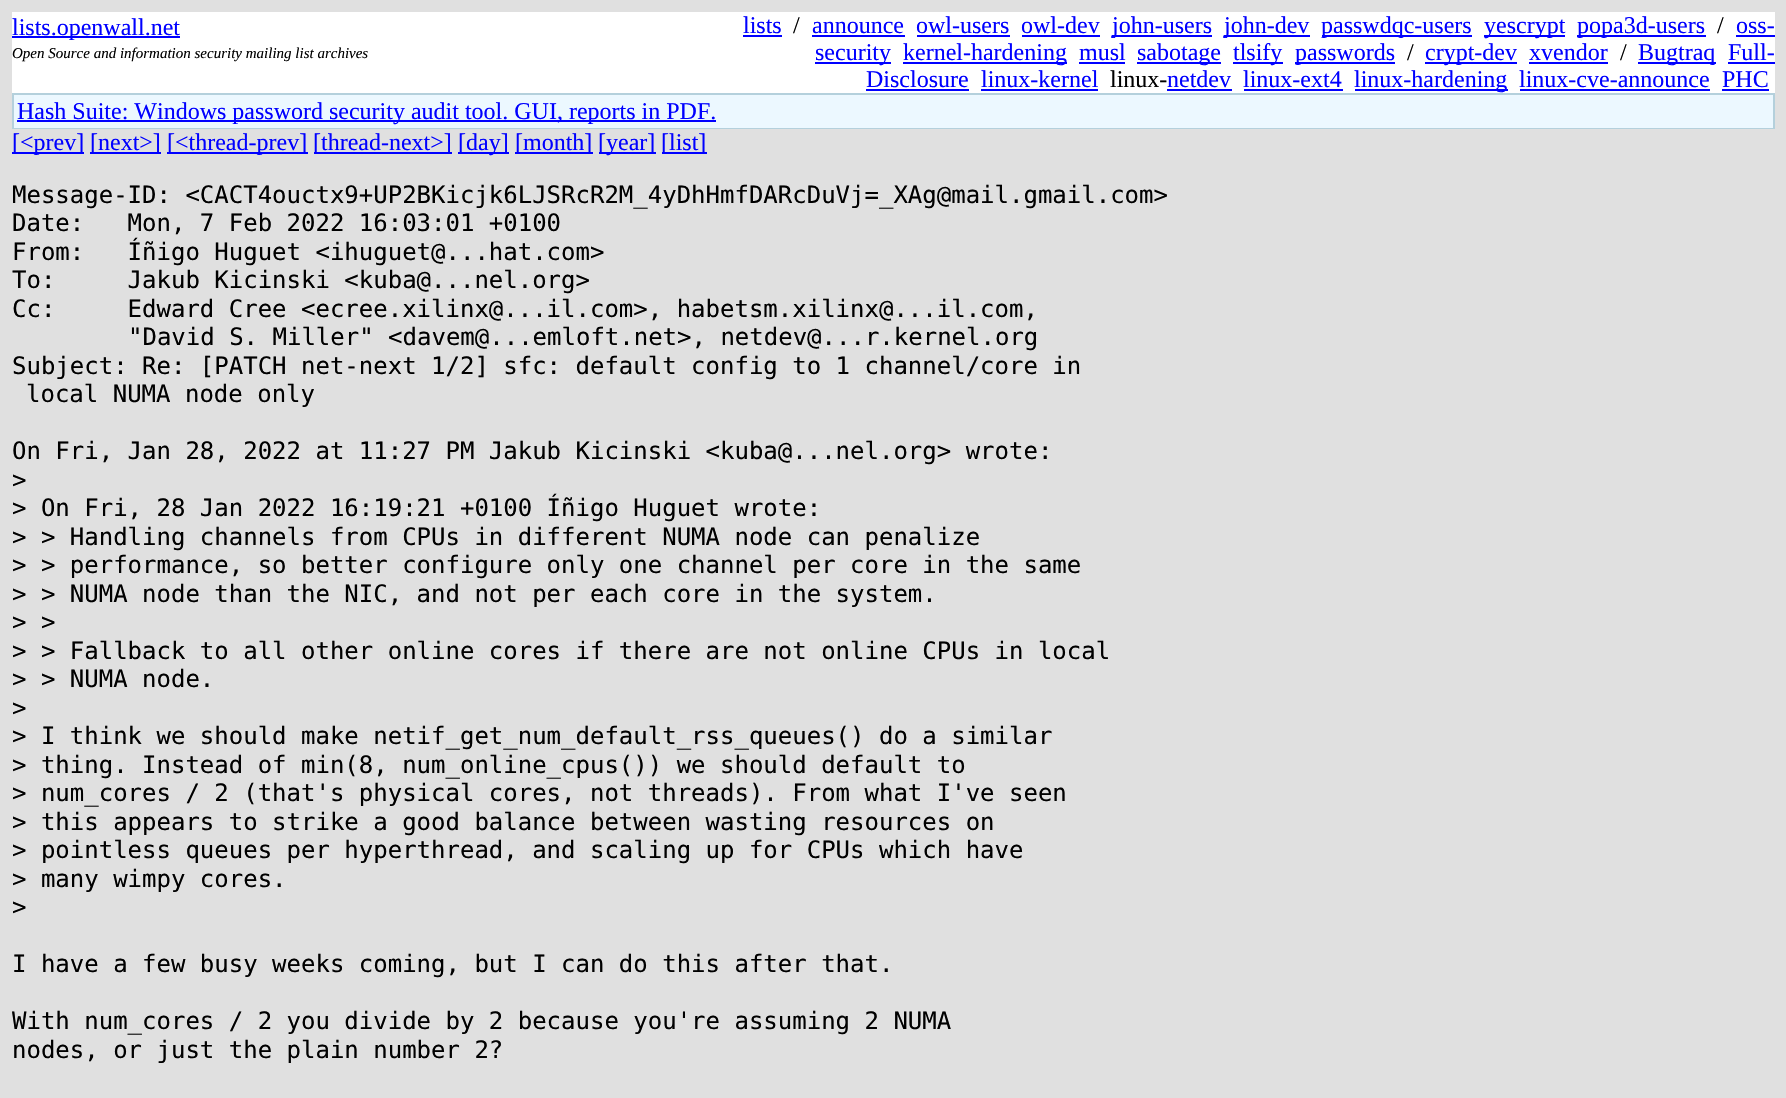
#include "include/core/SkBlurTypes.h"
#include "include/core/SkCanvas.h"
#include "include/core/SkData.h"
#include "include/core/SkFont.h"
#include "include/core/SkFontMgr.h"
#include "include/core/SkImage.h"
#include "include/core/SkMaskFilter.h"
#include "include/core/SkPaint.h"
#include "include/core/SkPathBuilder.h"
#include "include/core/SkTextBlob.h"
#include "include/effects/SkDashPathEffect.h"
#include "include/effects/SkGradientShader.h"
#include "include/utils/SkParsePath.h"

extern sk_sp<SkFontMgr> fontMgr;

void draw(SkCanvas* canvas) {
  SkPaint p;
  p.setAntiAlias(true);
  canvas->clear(SkColorSetRGB(224, 224, 224));
  p.setColor(SK_ColorWHITE);
  canvas->drawRect(SkRect::MakeLTRB(12, 12, 1775, 93), p);
  p.setColor(SkColorSetRGB(0, 0, 255));
  canvas->drawRect(SkRect::MakeLTRB(12, 36, 180, 38), p);
  canvas->drawRect(SkRect::MakeLTRB(743, 35, 782, 37), p);
  canvas->drawRect(SkRect::MakeLTRB(812, 35, 905, 37), p);
  canvas->drawRect(SkRect::MakeLTRB(917, 35, 1010, 37), p);
  canvas->drawRect(SkRect::MakeLTRB(1022, 35, 1100, 37), p);
  canvas->drawRect(SkRect::MakeLTRB(1112, 35, 1212, 37), p);
  canvas->drawRect(SkRect::MakeLTRB(1224, 35, 1310, 37), p);
  canvas->drawRect(SkRect::MakeLTRB(1322, 35, 1472, 37), p);
  canvas->drawRect(SkRect::MakeLTRB(1484, 35, 1565, 37), p);
  canvas->drawRect(SkRect::MakeLTRB(1577, 35, 1706, 37), p);
  canvas->drawRect(SkRect::MakeLTRB(1736, 35, 1775, 37), p);
  canvas->drawRect(SkRect::MakeLTRB(815, 62, 891, 64), p);
  canvas->drawRect(SkRect::MakeLTRB(903, 62, 1067, 64), p);
  canvas->drawRect(SkRect::MakeLTRB(1079, 62, 1125, 64), p);
  canvas->drawRect(SkRect::MakeLTRB(1137, 62, 1221, 64), p);
  canvas->drawRect(SkRect::MakeLTRB(1233, 62, 1283, 64), p);
  canvas->drawRect(SkRect::MakeLTRB(1295, 62, 1395, 64), p);
  canvas->drawRect(SkRect::MakeLTRB(1425, 62, 1517, 64), p);
  canvas->drawRect(SkRect::MakeLTRB(1529, 62, 1608, 64), p);
  canvas->drawRect(SkRect::MakeLTRB(1638, 62, 1716, 64), p);
  canvas->drawRect(SkRect::MakeLTRB(1728, 62, 1775, 64), p);
  canvas->drawRect(SkRect::MakeLTRB(866, 89, 969, 91), p);
  canvas->drawRect(SkRect::MakeLTRB(981, 89, 1098, 91), p);
  canvas->drawRect(SkRect::MakeLTRB(1167, 89, 1232, 91), p);
  canvas->drawRect(SkRect::MakeLTRB(1244, 89, 1343, 91), p);
  canvas->drawRect(SkRect::MakeLTRB(1355, 89, 1508, 91), p);
  canvas->drawRect(SkRect::MakeLTRB(1520, 89, 1710, 91), p);
  canvas->drawRect(SkRect::MakeLTRB(1722, 89, 1769, 91), p);
  p.setColor(SkColorSetRGB(180, 208, 220));
  canvas->drawRect(SkRect::MakeLTRB(12, 93, 1775, 129), p);
  p.setColor(SkColorSetRGB(236, 248, 255));
  canvas->drawRect(SkRect::MakeLTRB(14, 95, 1773, 128), p);
  p.setColor(SkColorSetRGB(0, 0, 255));
  canvas->drawRect(SkRect::MakeLTRB(17, 120, 716, 122), p);
  canvas->drawRect(SkRect::MakeLTRB(12, 152, 84, 154), p);
  canvas->drawRect(SkRect::MakeLTRB(90, 152, 161, 154), p);
  canvas->drawRect(SkRect::MakeLTRB(167, 152, 308, 154), p);
  canvas->drawRect(SkRect::MakeLTRB(314, 152, 452, 154), p);
  canvas->drawRect(SkRect::MakeLTRB(458, 152, 509, 154), p);
  canvas->drawRect(SkRect::MakeLTRB(515, 152, 593, 154), p);
  canvas->drawRect(SkRect::MakeLTRB(599, 152, 656, 154), p);
  canvas->drawRect(SkRect::MakeLTRB(662, 152, 707, 154), p);
  SkFont font1(fontMgr->matchFamilyStyle("Liberation Serif", SkFontStyle::Normal()), 24);
  font1.setSubpixel(true);
  canvas->drawString("lists.openwall.net", 12, 35, font1, p);
  canvas->drawString("lists", 743, 33, font1, p);
  p.setColor(SK_ColorBLACK);
  canvas->drawString("/", 793, 33, font1, p);
  p.setColor(SkColorSetRGB(0, 0, 255));
  canvas->drawString("announce", 812, 33, font1, p);
  canvas->drawString("owl-users", 916, 33, font1, p);
  canvas->drawString("owl-dev", 1021, 33, font1, p);
  canvas->drawString("john-users", 1112, 33, font1, p);
  canvas->drawString("john-dev", 1224, 33, font1, p);
  canvas->drawString("passwdqc-users", 1321, 33, font1, p);
  canvas->drawString("yescrypt", 1484, 33, font1, p);
  canvas->drawString("popa3d-users", 1577, 33, font1, p);
  p.setColor(SK_ColorBLACK);
  canvas->drawString("/", 1717, 33, font1, p);
  p.setColor(SkColorSetRGB(0, 0, 255));
  canvas->drawString("oss-", 1736, 33, font1, p);
  canvas->drawString("security", 815, 60, font1, p);
  canvas->drawString("kernel-hardening", 903, 60, font1, p);
  canvas->drawString("musl", 1079, 60, font1, p);
  canvas->drawString("sabotage", 1137, 60, font1, p);
  canvas->drawString("tlsify", 1233, 60, font1, p);
  canvas->drawString("passwords", 1295, 60, font1, p);
  p.setColor(SK_ColorBLACK);
  canvas->drawString("/", 1407, 60, font1, p);
  p.setColor(SkColorSetRGB(0, 0, 255));
  canvas->drawString("crypt-dev", 1425, 60, font1, p);
  canvas->drawString("xvendor", 1529, 60, font1, p);
  p.setColor(SK_ColorBLACK);
  canvas->drawString("/", 1620, 60, font1, p);
  p.setColor(SkColorSetRGB(0, 0, 255));
  canvas->drawString("Bugtraq", 1638, 60, font1, p);
  canvas->drawString("Full-", 1728, 60, font1, p);
  canvas->drawString("Disclosure", 866, 87, font1, p);
  canvas->drawString("linux-kernel", 981, 87, font1, p);
  p.setColor(SK_ColorBLACK);
  canvas->drawString("linux-", 1110, 87, font1, p);
  p.setColor(SkColorSetRGB(0, 0, 255));
  canvas->drawString("netdev", 1167, 87, font1, p);
  canvas->drawString("linux-ext4", 1243, 87, font1, p);
  canvas->drawString("linux-hardening", 1354, 87, font1, p);
  canvas->drawString("linux-cve-announce", 1519, 87, font1, p);
  canvas->drawString("PHC", 1722, 87, font1, p);
  SkFont font2(fontMgr->matchFamilyStyle("Liberation Serif", SkFontStyle::Italic()), 15);
  font2.setSubpixel(true);
  p.setColor(SK_ColorBLACK);
  canvas->drawString("Open Source and information security mailing list archives", 12, 58, font2, p);
  p.setColor(SkColorSetRGB(0, 0, 255));
  canvas->drawString("Hash Suite: Windows password security audit tool. GUI, reports in PDF.", 17, 119, font1, p);
  canvas->drawString("[<prev]", 12, 150, font1, p);
  canvas->drawString("[next>]", 90, 150, font1, p);
  canvas->drawString("[<thread-prev]", 167, 150, font1, p);
  canvas->drawString("[thread-next>]", 313, 150, font1, p);
  canvas->drawString("[day]", 458, 150, font1, p);
  canvas->drawString("[month]", 515, 150, font1, p);
  canvas->drawString("[year]", 598, 150, font1, p);
  canvas->drawString("[list]", 661, 150, font1, p);
  SkFont font3(fontMgr->matchFamilyStyle("DejaVu Sans Mono", SkFontStyle::Normal()), 24);
  font3.setSubpixel(true);
  p.setColor(SK_ColorBLACK);
  canvas->drawString("Message-ID: <CACT4ouctx9+UP2BKicjk6LJSRcR2M_4yDhHmfDARcDuVj=_XAg@mail.gmail.com>", 12, 203, font3, p);
  canvas->drawString("Date:   Mon, 7 Feb 2022 16:03:01 +0100", 12, 231, font3, p);
  canvas->drawString("From:   Íñigo Huguet <ihuguet@...hat.com>", 12, 260, font3, p);
  canvas->drawString("To:     Jakub Kicinski <kuba@...nel.org>", 12, 288, font3, p);
  canvas->drawString("Cc:     Edward Cree <ecree.xilinx@...il.com>, habetsm.xilinx@...il.com,", 12, 317, font3, p);
  canvas->drawString("\"David S. Miller\" <davem@...emloft.net>, netdev@...r.kernel.org", 128, 345, font3, p);
  canvas->drawString("Subject: Re: [PATCH net-next 1/2] sfc: default config to 1 channel/core in", 12, 374, font3, p);
  canvas->drawString("local NUMA node only", 26, 402, font3, p);
  canvas->drawString("On Fri, Jan 28, 2022 at 11:27 PM Jakub Kicinski <kuba@...nel.org> wrote:", 12, 459, font3, p);
  canvas->drawString(">", 12, 488, font3, p);
  canvas->drawString("> On Fri, 28 Jan 2022 16:19:21 +0100 Íñigo Huguet wrote:", 12, 516, font3, p);
  canvas->drawString("> > Handling channels from CPUs in different NUMA node can penalize", 12, 545, font3, p);
  canvas->drawString("> > performance, so better configure only one channel per core in the same", 12, 573, font3, p);
  canvas->drawString("> > NUMA node than the NIC, and not per each core in the system.", 12, 602, font3, p);
  canvas->drawString("> >", 12, 630, font3, p);
  canvas->drawString("> > Fallback to all other online cores if there are not online CPUs in local", 12, 659, font3, p);
  canvas->drawString("> > NUMA node.", 12, 687, font3, p);
  canvas->drawString(">", 12, 716, font3, p);
  canvas->drawString("> I think we should make netif_get_num_default_rss_queues() do a similar", 12, 744, font3, p);
  canvas->drawString("> thing. Instead of min(8, num_online_cpus()) we should default to", 12, 773, font3, p);
  canvas->drawString("> num_cores / 2 (that's physical cores, not threads). From what I've seen", 12, 801, font3, p);
  canvas->drawString("> this appears to strike a good balance between wasting resources on", 12, 830, font3, p);
  canvas->drawString("> pointless queues per hyperthread, and scaling up for CPUs which have", 12, 858, font3, p);
  canvas->drawString("> many wimpy cores.", 12, 887, font3, p);
  canvas->drawString(">", 12, 915, font3, p);
  canvas->drawString("I have a few busy weeks coming, but I can do this after that.", 12, 972, font3, p);
  canvas->drawString("With num_cores / 2 you divide by 2 because you're assuming 2 NUMA", 12, 1029, font3, p);
  canvas->drawString("nodes, or just the plain number 2?", 12, 1058, font3, p);
}
